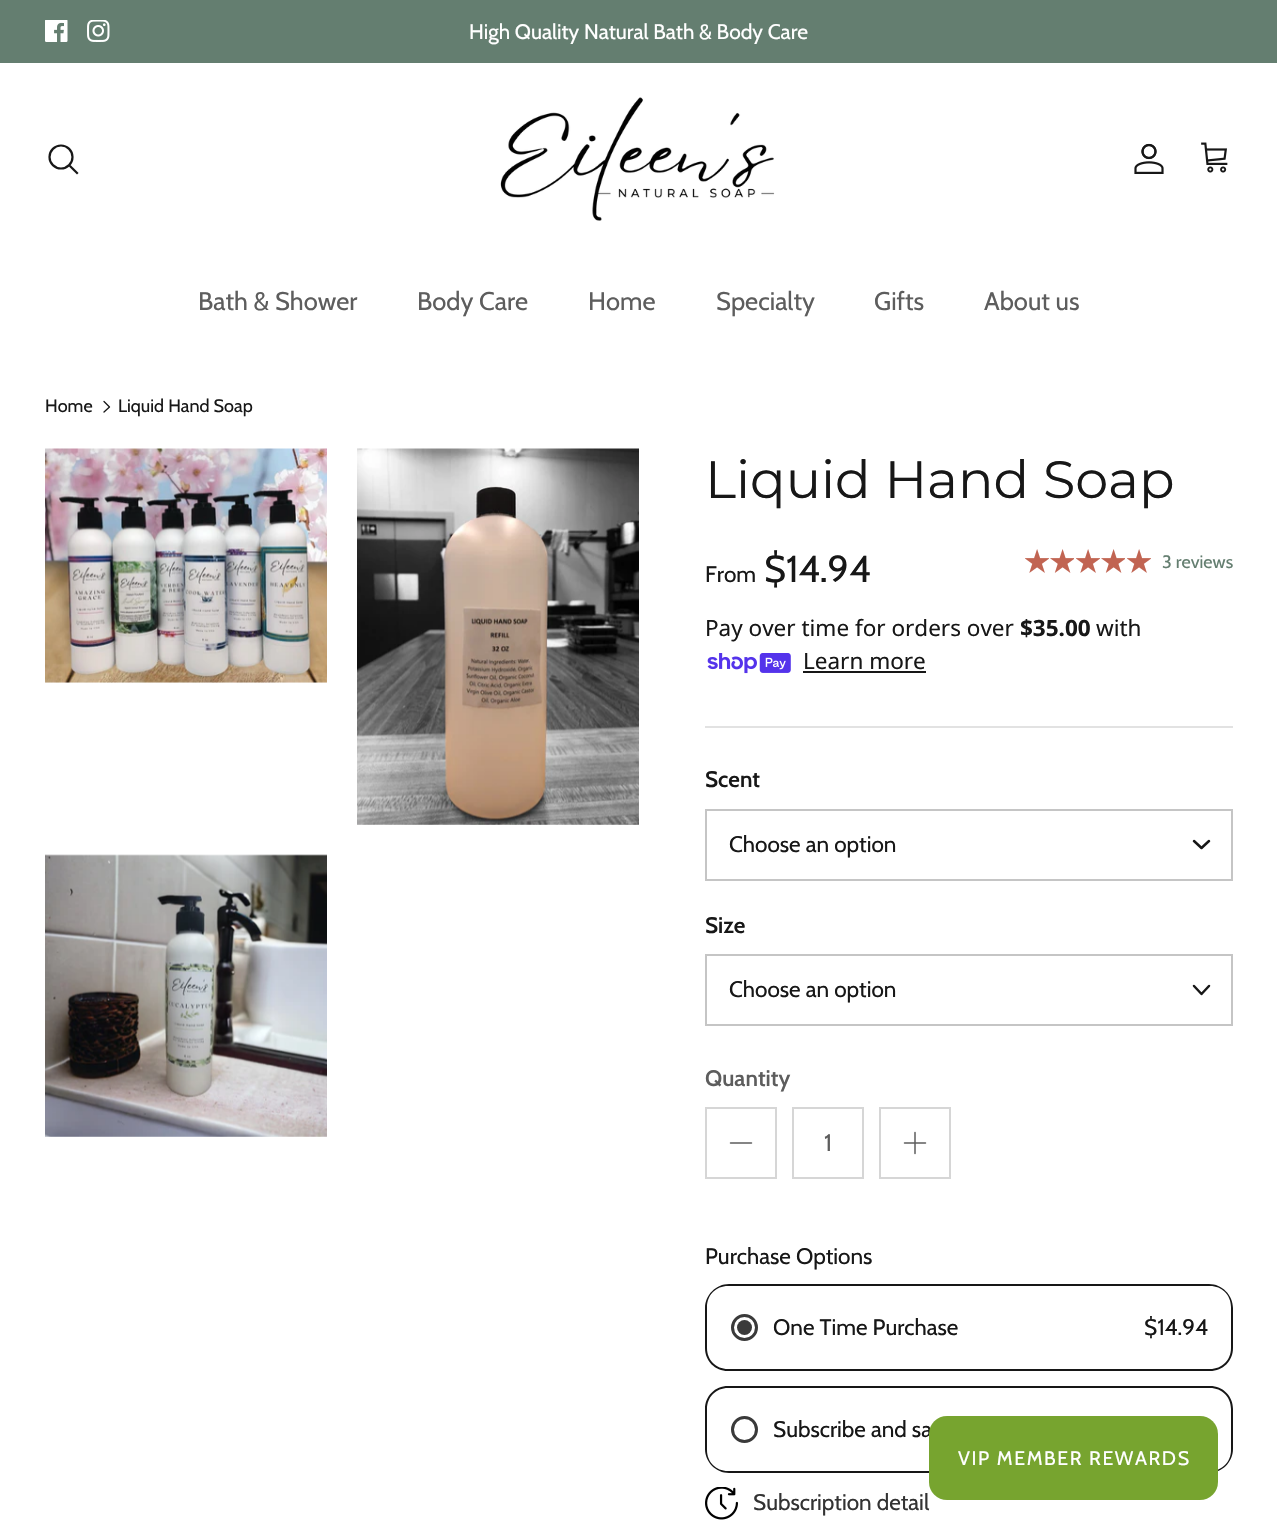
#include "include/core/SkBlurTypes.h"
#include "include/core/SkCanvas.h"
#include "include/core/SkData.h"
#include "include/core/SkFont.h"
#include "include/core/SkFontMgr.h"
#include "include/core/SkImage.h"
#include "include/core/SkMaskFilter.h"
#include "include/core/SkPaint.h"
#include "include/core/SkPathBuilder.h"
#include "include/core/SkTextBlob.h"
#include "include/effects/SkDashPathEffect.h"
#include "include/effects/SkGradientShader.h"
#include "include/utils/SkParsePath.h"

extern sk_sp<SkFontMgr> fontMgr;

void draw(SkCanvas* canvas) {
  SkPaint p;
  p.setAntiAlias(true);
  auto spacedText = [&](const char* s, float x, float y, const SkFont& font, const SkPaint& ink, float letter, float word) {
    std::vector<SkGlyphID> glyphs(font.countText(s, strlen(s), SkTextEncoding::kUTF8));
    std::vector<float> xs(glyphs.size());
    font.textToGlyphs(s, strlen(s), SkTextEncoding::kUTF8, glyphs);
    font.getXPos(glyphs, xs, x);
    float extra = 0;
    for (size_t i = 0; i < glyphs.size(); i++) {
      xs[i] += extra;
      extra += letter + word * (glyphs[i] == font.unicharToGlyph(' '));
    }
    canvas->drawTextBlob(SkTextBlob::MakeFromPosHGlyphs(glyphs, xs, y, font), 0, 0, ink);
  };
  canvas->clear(SK_ColorWHITE);
  p.setColor(SkColorSetRGB(100, 126, 112));
  canvas->drawRect(SkRect::MakeLTRB(0, 0, 1277, 63), p);
  canvas->drawImageRect(SkImages::DeferredFromEncodedData(SkData::MakeFromFileName("images/1.png")), SkRect::MakeLTRB(45, 20, 68, 42), SkSamplingOptions());
  canvas->drawImageRect(SkImages::DeferredFromEncodedData(SkData::MakeFromFileName("images/2.png")), SkRect::MakeLTRB(87, 20, 110, 42), SkSamplingOptions());
  p.setStyle(SkPaint::kStroke_Style);
  p.setStrokeWidth(2.2f);
  p.setColor(SkColorSetRGB(23, 23, 23));
  canvas->drawCircle(61, 157, 11.5f, p);
  p.setStrokeCap(SkPaint::kSquare_Cap);
  canvas->drawPath(SkPathBuilder().moveTo(70.5f, 166.5f).lineTo(77, 173).detach(), p);
  canvas->drawImageRect(SkImages::DeferredFromEncodedData(SkData::MakeFromFileName("images/3.png")), SkRect::MakeLTRB(500, 97, 775, 221), SkSamplingOptions());
  canvas->drawImageRect(SkImages::DeferredFromEncodedData(SkData::MakeFromFileName("images/4.png")), SkRect::MakeLTRB(1134, 143, 1164, 174), SkSamplingOptions());
  canvas->drawImageRect(SkImages::DeferredFromEncodedData(SkData::MakeFromFileName("images/5.png")), SkRect::MakeLTRB(1201, 142, 1228, 173), SkSamplingOptions());
  p.setStrokeWidth(1.3f);
  p.setStrokeCap(SkPaint::kRound_Cap);
  p.setStrokeJoin(SkPaint::kRound_Join);
  canvas->drawPath(SkPathBuilder().moveTo(104, 412).lineTo(109.5f, 407).lineTo(104, 401.5f).detach(), p);
  canvas->drawImageRect(SkImages::DeferredFromEncodedData(SkData::MakeFromFileName("images/6.png")), SkRect::MakeLTRB(45, 448, 327, 683), SkSamplingOptions());
  canvas->drawImageRect(SkImages::DeferredFromEncodedData(SkData::MakeFromFileName("images/7.png")), SkRect::MakeLTRB(357, 448, 639, 825), SkSamplingOptions());
  canvas->drawImageRect(SkImages::DeferredFromEncodedData(SkData::MakeFromFileName("images/8.png")), SkRect::MakeLTRB(45, 854, 327, 1137), SkSamplingOptions());
  canvas->drawImageRect(SkImages::DeferredFromEncodedData(SkData::MakeFromFileName("images/9.png")), SkRect::MakeLTRB(1025, 549, 1049, 573), SkSamplingOptions());
  canvas->drawImageRect(SkImages::DeferredFromEncodedData(SkData::MakeFromFileName("images/10.png")), SkRect::MakeLTRB(1050, 549, 1074, 573), SkSamplingOptions());
  canvas->drawImageRect(SkImages::DeferredFromEncodedData(SkData::MakeFromFileName("images/9.png")), SkRect::MakeLTRB(1076, 549, 1100, 573), SkSamplingOptions());
  canvas->drawImageRect(SkImages::DeferredFromEncodedData(SkData::MakeFromFileName("images/10.png")), SkRect::MakeLTRB(1101, 549, 1125, 573), SkSamplingOptions());
  canvas->drawImageRect(SkImages::DeferredFromEncodedData(SkData::MakeFromFileName("images/9.png")), SkRect::MakeLTRB(1127, 549, 1151, 573), SkSamplingOptions());
  canvas->drawImageRect(SkImages::DeferredFromEncodedData(SkData::MakeFromFileName("images/11.png")), SkRect::MakeLTRB(1025, 549, 1049, 573), SkSamplingOptions());
  canvas->drawImageRect(SkImages::DeferredFromEncodedData(SkData::MakeFromFileName("images/12.png")), SkRect::MakeLTRB(1050, 549, 1074, 573), SkSamplingOptions());
  canvas->drawImageRect(SkImages::DeferredFromEncodedData(SkData::MakeFromFileName("images/11.png")), SkRect::MakeLTRB(1076, 549, 1100, 573), SkSamplingOptions());
  canvas->drawImageRect(SkImages::DeferredFromEncodedData(SkData::MakeFromFileName("images/12.png")), SkRect::MakeLTRB(1101, 549, 1125, 573), SkSamplingOptions());
  canvas->drawImageRect(SkImages::DeferredFromEncodedData(SkData::MakeFromFileName("images/11.png")), SkRect::MakeLTRB(1127, 549, 1151, 573), SkSamplingOptions());
  canvas->drawImageRect(SkImages::DeferredFromEncodedData(SkData::MakeFromFileName("images/13.png")), SkRect::MakeLTRB(707, 653, 791, 674), SkSamplingOptions());
  p.setStyle(SkPaint::kFill_Style);
  canvas->drawRect(SkRect::MakeLTRB(803, 671, 926, 673), p);
  p.setColor(SkColorSetRGB(226, 226, 226));
  canvas->drawRect(SkRect::MakeLTRB(705, 726, 1233, 728), p);
  p.setStyle(SkPaint::kStroke_Style);
  p.setStrokeWidth(2);
  p.setStrokeCap(SkPaint::kButt_Cap);
  p.setStrokeJoin(SkPaint::kMiter_Join);
  p.setColor(SkColorSetRGB(197, 197, 197));
  canvas->drawRect(SkRect::MakeLTRB(706, 810, 1232, 880), p);
  p.setStrokeWidth(2.5f);
  p.setStrokeCap(SkPaint::kRound_Cap);
  p.setStrokeJoin(SkPaint::kRound_Join);
  p.setColor(SkColorSetRGB(23, 23, 23));
  canvas->drawPath(SkPathBuilder().moveTo(1194, 841).lineTo(1201.5f, 848).lineTo(1209, 841).detach(), p);
  p.setStrokeWidth(2);
  p.setStrokeCap(SkPaint::kButt_Cap);
  p.setStrokeJoin(SkPaint::kMiter_Join);
  p.setColor(SkColorSetRGB(197, 197, 197));
  canvas->drawRect(SkRect::MakeLTRB(706, 955, 1232, 1025), p);
  p.setStrokeWidth(2.5f);
  p.setStrokeCap(SkPaint::kRound_Cap);
  p.setStrokeJoin(SkPaint::kRound_Join);
  p.setColor(SkColorSetRGB(23, 23, 23));
  canvas->drawPath(SkPathBuilder().moveTo(1194, 986).lineTo(1201.5f, 994).lineTo(1209, 986).detach(), p);
  p.setStrokeWidth(2);
  p.setStrokeCap(SkPaint::kButt_Cap);
  p.setStrokeJoin(SkPaint::kMiter_Join);
  p.setColor(SkColorSetRGB(214, 214, 214));
  canvas->drawRect(SkRect::MakeLTRB(706, 1108, 776, 1178), p);
  p.setStrokeWidth(1.5f);
  p.setStrokeCap(SkPaint::kRound_Cap);
  p.setStrokeJoin(SkPaint::kRound_Join);
  p.setColor(SkColorSetRGB(93, 93, 93));
  canvas->drawPath(SkPathBuilder().moveTo(730.5f, 1143).lineTo(751.5f, 1143).detach(), p);
  p.setStrokeWidth(2);
  p.setStrokeCap(SkPaint::kButt_Cap);
  p.setStrokeJoin(SkPaint::kMiter_Join);
  p.setColor(SkColorSetRGB(214, 214, 214));
  canvas->drawRect(SkRect::MakeLTRB(793, 1108, 863, 1178), p);
  canvas->drawRect(SkRect::MakeLTRB(880, 1108, 950, 1178), p);
  p.setStrokeWidth(1.5f);
  p.setStrokeCap(SkPaint::kRound_Cap);
  p.setStrokeJoin(SkPaint::kRound_Join);
  p.setColor(SkColorSetRGB(93, 93, 93));
  canvas->drawPath(SkPathBuilder().moveTo(915, 1132.5f).lineTo(915, 1153.5f).moveTo(904.5f, 1143).lineTo(925.5f, 1143).detach(), p);
  p.setStyle(SkPaint::kFill_Style);
  p.setColor(SkColorSetRGB(23, 23, 23));
  canvas->drawPath(SkPathBuilder(SkPathFillType::kEvenOdd).moveTo(729, 1284).cubicTo(716, 1284, 705, 1295, 705, 1308).lineTo(705, 1348).cubicTo(705, 1361, 715, 1371, 728, 1371).lineTo(1210, 1371).cubicTo(1223, 1371, 1233, 1361, 1233, 1348).lineTo(1233, 1308).cubicTo(1233, 1295, 1222, 1284, 1209, 1284).close().moveTo(728, 1286).cubicTo(716, 1286, 707, 1295, 707, 1307).lineTo(707, 1348).cubicTo(707, 1360, 716, 1369, 728, 1369).lineTo(1210, 1369).cubicTo(1222, 1369, 1231, 1360, 1231, 1348).lineTo(1231, 1307).cubicTo(1231, 1295, 1222, 1286, 1210, 1286).close().detach(), p);
  p.setStyle(SkPaint::kStroke_Style);
  p.setStrokeWidth(3);
  p.setStrokeCap(SkPaint::kButt_Cap);
  p.setStrokeJoin(SkPaint::kMiter_Join);
  p.setColor(SkColorSetRGB(58, 58, 58));
  canvas->drawCircle(744.5f, 1327.5f, 12, p);
  p.setStyle(SkPaint::kFill_Style);
  canvas->drawCircle(744.5f, 1327.5f, 7.5f, p);
  p.setColor(SkColorSetRGB(23, 23, 23));
  canvas->drawPath(SkPathBuilder(SkPathFillType::kEvenOdd).moveTo(728, 1386).cubicTo(715, 1386, 705, 1396, 705, 1409).lineTo(705, 1449).cubicTo(705, 1462, 716, 1473, 729, 1473).lineTo(1209, 1473).cubicTo(1222, 1473, 1233, 1462, 1233, 1449).lineTo(1233, 1409).cubicTo(1233, 1396, 1223, 1386, 1210, 1386).close().moveTo(728, 1388).cubicTo(716, 1388, 707, 1397, 707, 1409).lineTo(707, 1450).cubicTo(707, 1462, 716, 1471, 728, 1471).lineTo(1210, 1471).cubicTo(1222, 1471, 1231, 1462, 1231, 1450).lineTo(1231, 1409).cubicTo(1231, 1397, 1222, 1388, 1210, 1388).close().detach(), p);
  p.setStyle(SkPaint::kStroke_Style);
  p.setColor(SkColorSetRGB(58, 58, 58));
  canvas->drawCircle(744.5f, 1429.5f, 12, p);
  canvas->drawImageRect(SkImages::DeferredFromEncodedData(SkData::MakeFromFileName("images/14.png")), SkRect::MakeLTRB(705, 1487, 738, 1520), SkSamplingOptions());
  SkFont font1(fontMgr->matchFamilyStyle("Cabin", SkFontStyle::Normal()), 21);
  font1.setSubpixel(true);
  p.setStyle(SkPaint::kFill_Style);
  p.setColor(SK_ColorWHITE);
  canvas->drawString("High Quality Natural Bath & Body Care", 469, 39, font1, p);
  SkFont font2(fontMgr->matchFamilyStyle("Cabin", SkFontStyle::Normal()), 25.5f);
  font2.setSubpixel(true);
  p.setColor(SkColorSetRGB(93, 93, 93));
  canvas->drawString("Bath & Shower", 198, 310, font2, p);
  canvas->drawString("Body Care", 417, 310, font2, p);
  canvas->drawString("Home", 588, 310, font2, p);
  canvas->drawString("Specialty", 716, 310, font2, p);
  canvas->drawString("Gifts", 874, 310, font2, p);
  canvas->drawString("About us", 984, 310, font2, p);
  SkFont font3(fontMgr->matchFamilyStyle("Cabin", SkFontStyle::Normal()), 18);
  font3.setSubpixel(true);
  p.setColor(SkColorSetRGB(23, 23, 23));
  canvas->drawString("Home", 45, 412, font3, p);
  canvas->drawString("Liquid Hand Soap", 118, 412, font3, p);
  SkFont font4(fontMgr->matchFamilyStyle("Montserrat", SkFontStyle::Normal()), 52.5f);
  font4.setSubpixel(true);
  canvas->drawString("Liquid Hand Soap", 705, 498, font4, p);
  SkFont font5(fontMgr->matchFamilyStyle("Cabin", SkFontStyle::Normal()), 22.5f);
  font5.setSubpixel(true);
  canvas->drawString("From", 705, 582, font5, p);
  SkFont font6(fontMgr->matchFamilyStyle("Cabin", SkFontStyle::Normal()), 37.5f);
  font6.setSubpixel(true);
  canvas->drawString("$14.94", 764, 582, font6, p);
  p.setColor(SkColorSetRGB(100, 126, 112));
  canvas->drawString("3 reviews", 1162, 568, font3, p);
  SkFont font7(fontMgr->matchFamilyStyle("Noto Sans", SkFontStyle::Normal()), 22.5f);
  font7.setSubpixel(true);
  p.setColor(SkColorSetRGB(23, 23, 23));
  canvas->drawString("Pay over time for orders over", 705, 636, font7, p);
  SkFont font8(fontMgr->matchFamilyStyle("Noto Sans", SkFontStyle::Bold()), 22.5f);
  font8.setSubpixel(true);
  canvas->drawString("$35.00", 1020, 636, font8, p);
  canvas->drawString("with", 1096, 636, font7, p);
  canvas->drawString("Learn more", 803, 669, font7, p);
  SkFont font9(fontMgr->matchFamilyStyle("Cabin", SkFontStyle(600, SkFontStyle::kNormal_Width, SkFontStyle::kUpright_Slant)), 22.5f);
  font9.setSubpixel(true);
  canvas->drawString("Scent", 705, 787, font9, p);
  canvas->drawString("Choose an option", 729, 852, font5, p);
  canvas->drawString("Size", 705, 933, font9, p);
  canvas->drawString("Choose an option", 729, 997, font5, p);
  p.setColor(SkColorSetRGB(93, 93, 93));
  canvas->drawString("Quantity", 705, 1086, font9, p);
  SkFont font10(fontMgr->matchFamilyStyle("Cabin", SkFontStyle::Normal()), 24);
  font10.setSubpixel(true);
  canvas->drawString("1", 824, 1151, font10, p);
  p.setColor(SkColorSetRGB(23, 23, 23));
  canvas->drawString("Purchase Options", 705, 1264, font5, p);
  canvas->drawString("One Time Purchase", 773, 1335, font5, p);
  canvas->drawString("$14.94", 1144, 1335, font5, p);
  canvas->drawString("Subscribe and sa", 773, 1437, font5, p);
  p.setColor(SkColorSetRGB(51, 51, 51));
  canvas->drawString("Subscription detail", 753, 1510, font5, p);
  p.setColor(SkColorSetRGB(119, 164, 47));
  canvas->drawRoundRect(SkRect::MakeLTRB(929, 1416, 1218, 1500), 18, 18, p);
  SkFont font11(fontMgr->matchFamilyStyle("Cabin", SkFontStyle::Normal()), 19.5f);
  font11.setSubpixel(true);
  p.setColor(SK_ColorWHITE);
  spacedText("VIP MEMBER REWARDS", 958, 1465, font11, p, 1.6f, 0);
}
